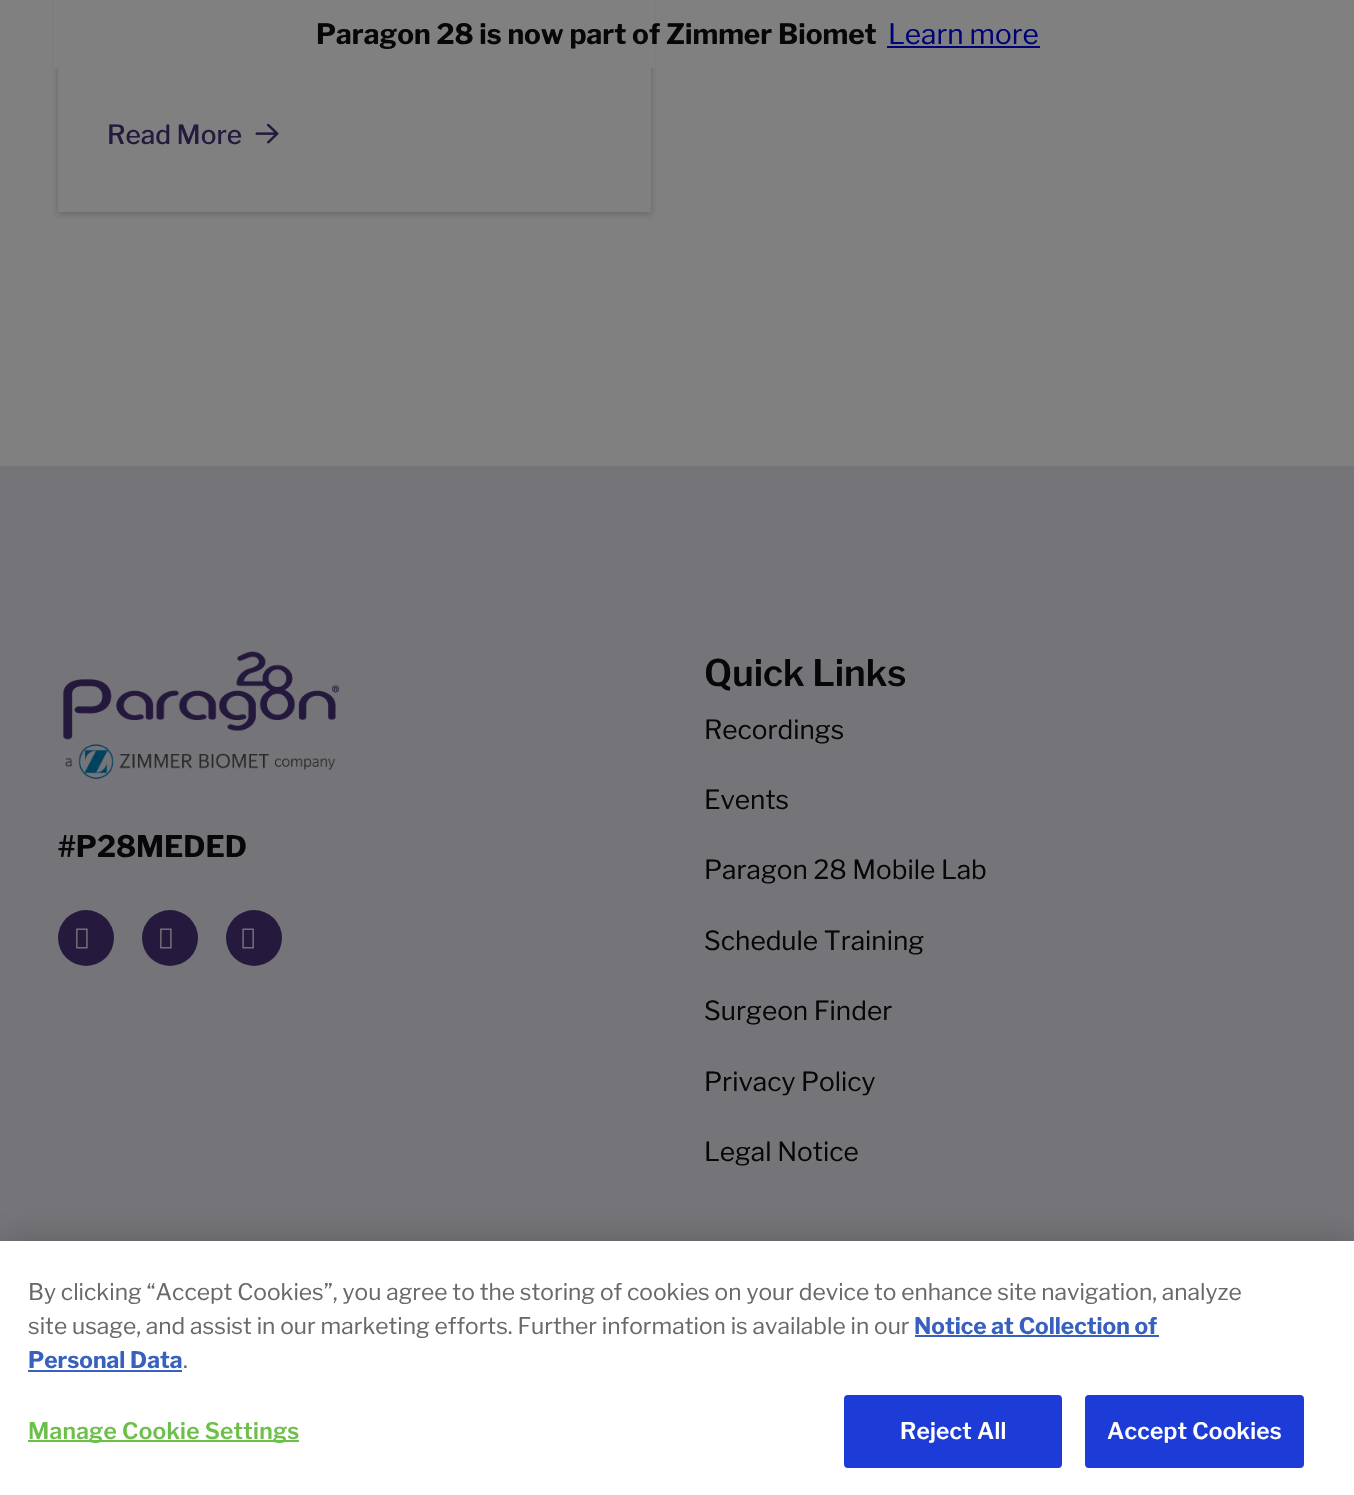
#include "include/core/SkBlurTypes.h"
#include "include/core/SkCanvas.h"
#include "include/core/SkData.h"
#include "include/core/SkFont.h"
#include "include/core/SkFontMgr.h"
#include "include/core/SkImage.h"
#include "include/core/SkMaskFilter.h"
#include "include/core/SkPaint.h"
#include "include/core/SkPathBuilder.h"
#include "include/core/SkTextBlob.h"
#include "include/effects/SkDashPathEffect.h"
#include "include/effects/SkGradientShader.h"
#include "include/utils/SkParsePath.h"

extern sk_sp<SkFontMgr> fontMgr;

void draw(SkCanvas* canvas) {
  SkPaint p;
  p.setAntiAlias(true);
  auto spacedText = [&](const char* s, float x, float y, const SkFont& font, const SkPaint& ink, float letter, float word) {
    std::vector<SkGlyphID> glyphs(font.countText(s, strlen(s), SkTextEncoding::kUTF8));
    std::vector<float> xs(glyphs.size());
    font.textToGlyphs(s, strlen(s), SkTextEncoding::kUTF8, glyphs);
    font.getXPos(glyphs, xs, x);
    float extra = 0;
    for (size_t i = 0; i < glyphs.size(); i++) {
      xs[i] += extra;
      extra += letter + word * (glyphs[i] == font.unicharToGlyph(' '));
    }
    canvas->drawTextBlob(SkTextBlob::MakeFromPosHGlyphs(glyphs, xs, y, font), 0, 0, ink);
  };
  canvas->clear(SkColorSetRGB(128, 128, 128));
  canvas->save();
  canvas->clipPath(SkPathBuilder(SkPathFillType::kEvenOdd).moveTo(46, 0).lineTo(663, 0).lineTo(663, 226).lineTo(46, 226).close().moveTo(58, -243).lineTo(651, -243).lineTo(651, 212).lineTo(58, 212).close().detach(), true);
  p.setColor(SkColorSetARGB(64, 26, 25, 24));
  p.setMaskFilter(SkMaskFilter::MakeBlur(kNormal_SkBlurStyle, 3.5f));
  canvas->drawRect(SkRect::MakeLTRB(58, -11, 651, 214), p);
  p.setMaskFilter(nullptr);
  canvas->restore();
  p.setColor(SkColorSetRGB(128, 128, 128));
  canvas->drawRect(SkRect::MakeLTRB(54, 0, 655, 68), p);
  p.setColor(SkColorSetRGB(0, 0, 119));
  canvas->drawRect(SkRect::MakeLTRB(887, 46, 1040, 48), p);
  canvas->drawImageRect(SkImages::DeferredFromEncodedData(SkData::MakeFromFileName("images/1.png")), SkRect::MakeLTRB(255, 123, 279, 144), SkSamplingOptions());
  p.setColor(SkColorSetRGB(117, 116, 120));
  canvas->drawRect(SkRect::MakeLTRB(0, 466, 1354, 1241), p);
  canvas->drawImageRect(SkImages::DeferredFromEncodedData(SkData::MakeFromFileName("images/2.png")), SkRect::MakeLTRB(62, 651, 340, 779), SkSamplingOptions());
  p.setColor(SkColorSetRGB(37, 25, 61));
  canvas->drawCircle(86, 938, 28, p);
  canvas->drawImageRect(SkImages::DeferredFromEncodedData(SkData::MakeFromFileName("images/3.png")), SkRect::MakeLTRB(76, 928, 88, 949), SkSamplingOptions());
  canvas->drawCircle(170, 938, 28, p);
  canvas->drawImageRect(SkImages::DeferredFromEncodedData(SkData::MakeFromFileName("images/3.png")), SkRect::MakeLTRB(160, 928, 172, 949), SkSamplingOptions());
  canvas->drawCircle(254, 938, 28, p);
  canvas->drawImageRect(SkImages::DeferredFromEncodedData(SkData::MakeFromFileName("images/4.png")), SkRect::MakeLTRB(242, 928, 254, 949), SkSamplingOptions());
  p.setColor(SkColorSetARGB(51, 0, 0, 0));
  p.setMaskFilter(SkMaskFilter::MakeBlur(kNormal_SkBlurStyle, 16));
  canvas->drawRect(SkRect::MakeLTRB(0, 1241, 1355, 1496), p);
  p.setMaskFilter(nullptr);
  p.setColor(SK_ColorWHITE);
  canvas->drawRect(SkRect::MakeLTRB(0, 1241, 1354, 1495), p);
  p.setColor(SkColorSetRGB(56, 96, 190));
  canvas->drawRect(SkRect::MakeLTRB(915, 1335, 1159, 1337), p);
  canvas->drawRect(SkRect::MakeLTRB(28, 1370, 182, 1372), p);
  p.setColor(SkColorSetRGB(108, 192, 74));
  canvas->drawRect(SkRect::MakeLTRB(28, 1440, 299, 1442), p);
  p.setColor(SkColorSetRGB(29, 60, 215));
  canvas->drawRoundRect(SkRect::MakeLTRB(845, 1396, 1061, 1467), 3, 3, p);
  p.setStyle(SkPaint::kStroke_Style);
  p.setStrokeWidth(2);
  canvas->drawRoundRect(SkRect::MakeLTRB(845, 1396, 1061, 1467), 3, 3, p);
  p.setStyle(SkPaint::kFill_Style);
  canvas->drawRoundRect(SkRect::MakeLTRB(1086, 1396, 1303, 1467), 3, 3, p);
  p.setStyle(SkPaint::kStroke_Style);
  canvas->drawRoundRect(SkRect::MakeLTRB(1086, 1396, 1303, 1467), 3, 3, p);
  SkFont font1(fontMgr->matchFamilyStyle("Libre Franklin", SkFontStyle::Bold()), 28);
  font1.setSubpixel(true);
  p.setStyle(SkPaint::kFill_Style);
  p.setColor(SkColorSetRGB(6, 7, 7));
  canvas->drawString("Paragon 28 is now part of Zimmer Biomet", 316, 44, font1, p);
  SkFont font2(fontMgr->matchFamilyStyle("Libre Franklin", SkFontStyle::Normal()), 28);
  font2.setSubpixel(true);
  p.setColor(SkColorSetRGB(0, 0, 119));
  canvas->drawString("Learn more", 888, 44, font2, p);
  SkFont font3(fontMgr->matchFamilyStyle("Libre Franklin", SkFontStyle(500, SkFontStyle::kNormal_Width, SkFontStyle::kUpright_Slant)), 26.25f);
  font3.setSubpixel(true);
  p.setColor(SkColorSetRGB(37, 25, 61));
  canvas->drawString("Read More", 107, 144, font3, p);
  SkFont font4(fontMgr->matchFamilyStyle("Libre Franklin", SkFontStyle::Bold()), 29.5f);
  font4.setSubpixel(true);
  p.setColor(SkColorSetRGB(6, 7, 7));
  canvas->drawString("#P28MEDED", 58, 857, font4, p);
  SkFont font5(fontMgr->matchFamilyStyle("Libre Franklin", SkFontStyle(600, SkFontStyle::kNormal_Width, SkFontStyle::kUpright_Slant)), 36.5f);
  font5.setSubpixel(true);
  canvas->drawString("Quick Links", 704, 686, font5, p);
  SkFont font6(fontMgr->matchFamilyStyle("Libre Franklin", SkFontStyle::Normal()), 26.25f);
  font6.setSubpixel(true);
  canvas->drawString("Recordings", 704, 739, font6, p);
  canvas->drawString("Events", 704, 809, font6, p);
  canvas->drawString("Paragon 28 Mobile Lab", 704, 879, font6, p);
  canvas->drawString("Schedule Training", 704, 950, font6, p);
  canvas->drawString("Surgeon Finder", 704, 1020, font6, p);
  canvas->drawString("Privacy Policy", 704, 1091, font6, p);
  canvas->drawString("Legal Notice", 704, 1161, font6, p);
  SkFont font7(fontMgr->matchFamilyStyle("Libre Franklin", SkFontStyle::Normal()), 22.75f);
  font7.setSubpixel(true);
  p.setColor(SkColorSetRGB(105, 105, 105));
  canvas->drawString("By clicking “Accept Cookies”, you agree to the storing of cookies on your device to enhance site navigation, analyze", 28, 1300, font7, p);
  canvas->drawString("site usage, and assist in our marketing efforts. Further information is available in our", 28, 1334, font7, p);
  SkFont font8(fontMgr->matchFamilyStyle("Libre Franklin", SkFontStyle::Bold()), 22.75f);
  font8.setSubpixel(true);
  p.setColor(SkColorSetRGB(56, 96, 190));
  canvas->drawString("Notice at Collection of", 914, 1334, font8, p);
  canvas->drawString("Personal Data", 28, 1368, font8, p);
  p.setColor(SkColorSetRGB(105, 105, 105));
  canvas->drawString(".", 183, 1368, font7, p);
  SkFont font9(fontMgr->matchFamilyStyle("Libre Franklin", SkFontStyle(600, SkFontStyle::kNormal_Width, SkFontStyle::kUpright_Slant)), 22.75f);
  font9.setSubpixel(true);
  p.setColor(SkColorSetRGB(108, 192, 74));
  spacedText("Manage Cookie Settings", 28, 1439, font9, p, 0.25f, 0);
  p.setColor(SK_ColorWHITE);
  spacedText("Reject All", 900, 1439, font9, p, 0.25f, 0);
  spacedText("Accept Cookies", 1107, 1439, font9, p, 0.25f, 0);
}
